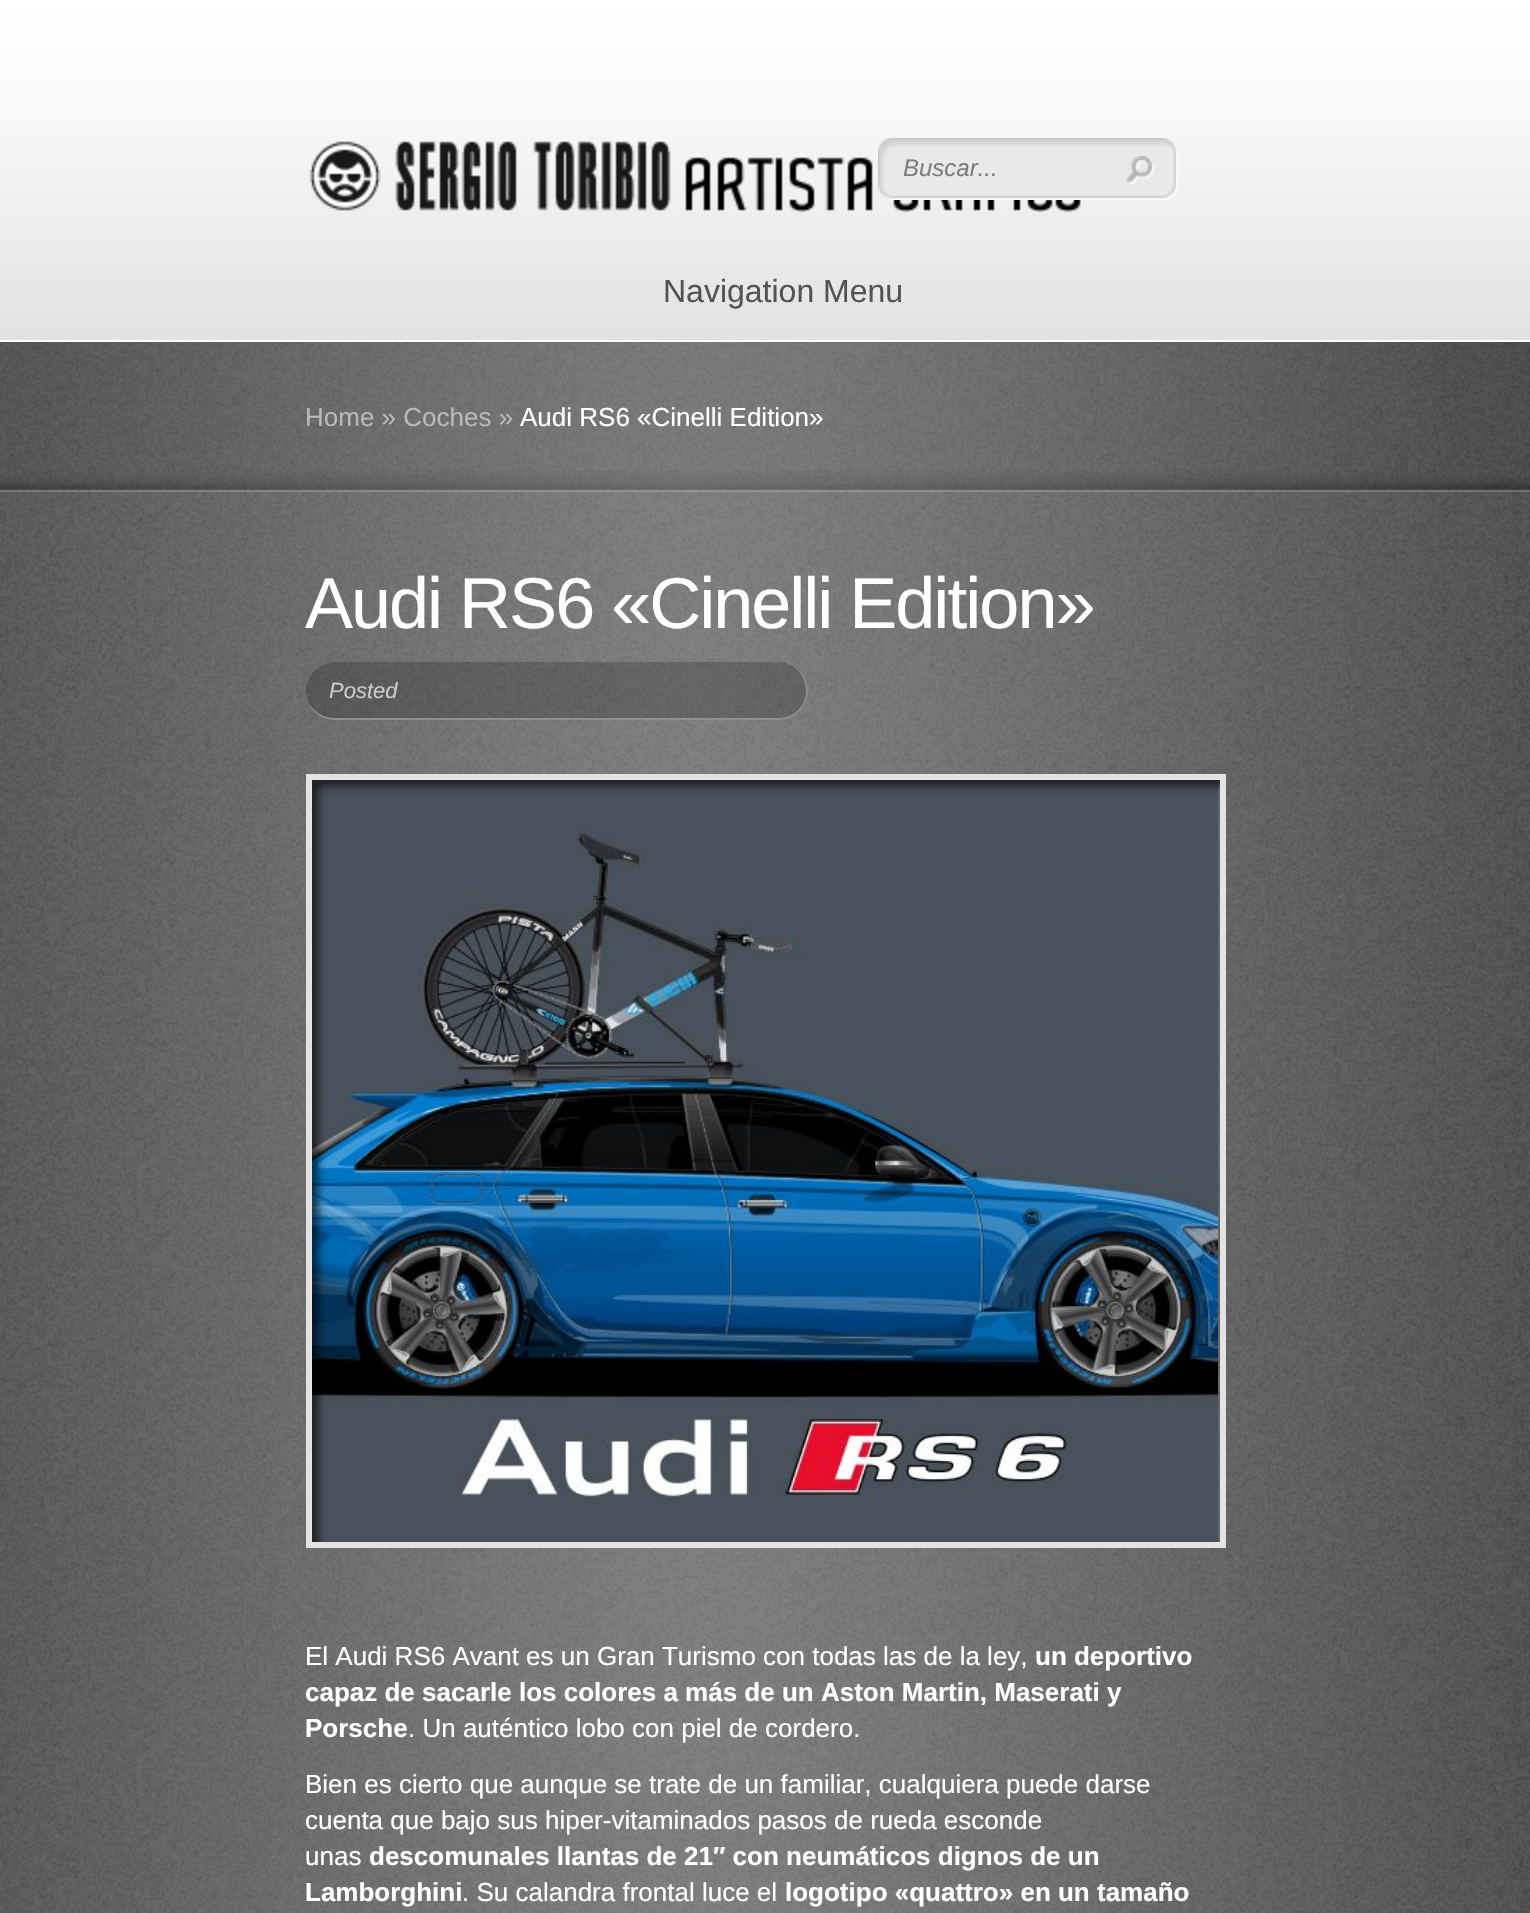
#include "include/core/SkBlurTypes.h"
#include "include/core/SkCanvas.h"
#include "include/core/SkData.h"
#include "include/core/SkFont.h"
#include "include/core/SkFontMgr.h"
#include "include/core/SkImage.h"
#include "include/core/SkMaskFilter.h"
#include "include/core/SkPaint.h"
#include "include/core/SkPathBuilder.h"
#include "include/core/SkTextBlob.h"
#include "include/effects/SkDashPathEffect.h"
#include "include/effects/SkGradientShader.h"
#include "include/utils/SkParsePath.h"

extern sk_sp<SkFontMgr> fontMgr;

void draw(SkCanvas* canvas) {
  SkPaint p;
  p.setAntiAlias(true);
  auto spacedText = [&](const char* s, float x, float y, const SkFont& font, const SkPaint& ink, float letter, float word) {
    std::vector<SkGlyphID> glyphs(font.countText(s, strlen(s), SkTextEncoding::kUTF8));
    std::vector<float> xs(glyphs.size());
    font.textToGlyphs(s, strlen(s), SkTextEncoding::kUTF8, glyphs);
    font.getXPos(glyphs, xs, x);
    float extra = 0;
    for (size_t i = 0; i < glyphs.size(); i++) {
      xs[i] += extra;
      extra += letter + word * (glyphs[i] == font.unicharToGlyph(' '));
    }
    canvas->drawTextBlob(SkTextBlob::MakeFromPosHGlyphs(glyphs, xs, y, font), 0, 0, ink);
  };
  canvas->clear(SK_ColorWHITE);
  canvas->drawImageRect(SkImages::DeferredFromEncodedData(SkData::MakeFromFileName("images/1.png")), SkRect::MakeLTRB(0, 342, 1530, 1913), SkSamplingOptions());
  canvas->drawImageRect(SkImages::DeferredFromEncodedData(SkData::MakeFromFileName("images/2.png")), SkRect::MakeLTRB(0, 0, 1530, 340), SkSamplingOptions());
  canvas->drawImageRect(SkImages::DeferredFromEncodedData(SkData::MakeFromFileName("images/3.png")), SkRect::MakeLTRB(309, 141, 1081, 212), SkSamplingOptions());
  canvas->drawImageRect(SkImages::DeferredFromEncodedData(SkData::MakeFromFileName("images/4.png")), SkRect::MakeLTRB(878, 138, 1178, 200), SkSamplingOptions());
  canvas->drawImageRect(SkImages::DeferredFromEncodedData(SkData::MakeFromFileName("images/5.png")), SkRect::MakeLTRB(1126, 156, 1154, 184), SkSamplingOptions());
  canvas->drawImageRect(SkImages::DeferredFromEncodedData(SkData::MakeFromFileName("images/6.png")), SkRect::MakeLTRB(0, 484, 1530, 492), SkSamplingOptions());
  canvas->drawImageRect(SkImages::DeferredFromEncodedData(SkData::MakeFromFileName("images/7.png")), SkRect::MakeLTRB(0, 470, 1530, 492), SkSamplingOptions());
  p.setColor(SkColorSetARGB(23, 0, 0, 0));
  canvas->drawRect(SkRect::MakeLTRB(0, 342, 1530, 492), p);
  canvas->drawImageRect(SkImages::DeferredFromEncodedData(SkData::MakeFromFileName("images/8.png")), SkRect::MakeLTRB(0, 342, 1530, 492), SkSamplingOptions());
  canvas->drawImageRect(SkImages::DeferredFromEncodedData(SkData::MakeFromFileName("images/9.png")), SkRect::MakeLTRB(0, 492, 1530, 1913), SkSamplingOptions());
  p.setColor(SkColorSetARGB(51, 0, 0, 0));
  canvas->drawRoundRect(SkRect::MakeLTRB(306, 662, 808, 720), 29, 29, p);
  p.setColor(SkColorSetRGB(144, 144, 144));
  canvas->drawPath(SkPathBuilder(SkPathFillType::kEvenOdd).moveTo(335, 662).lineTo(779, 662).cubicTo(795, 662, 808, 675, 808, 691).cubicTo(808, 707, 795, 720, 779, 720).lineTo(335, 720).cubicTo(319, 720, 306, 707, 306, 691).cubicTo(306, 675, 319, 662, 335, 662).close().moveTo(335, 662).lineTo(779, 662).cubicTo(794, 662, 806, 675, 806, 691).cubicTo(806, 706, 794, 718, 779, 718).lineTo(335, 718).cubicTo(319, 718, 306, 706, 306, 691).cubicTo(306, 675, 319, 662, 335, 662).close().detach(), p);
  p.setStyle(SkPaint::kStroke_Style);
  p.setStrokeWidth(6);
  p.setColor(SkColorSetRGB(227, 227, 227));
  canvas->drawRect(SkRect::MakeLTRB(309, 777, 1223, 1545), p);
  canvas->drawImageRect(SkImages::DeferredFromEncodedData(SkData::MakeFromFileName("images/10.png")), SkRect::MakeLTRB(312, 780, 1218, 1542), SkSamplingOptions());
  canvas->drawImageRect(SkImages::DeferredFromEncodedData(SkData::MakeFromFileName("images/11.png")), SkRect::MakeLTRB(312, 780, 1220, 1542), SkSamplingOptions());
  SkFont font1(fontMgr->matchFamilyStyle("Liberation Sans", SkFontStyle::Italic()), 24);
  font1.setSubpixel(true);
  p.setStyle(SkPaint::kFill_Style);
  p.setColor(SkColorSetRGB(125, 125, 125));
  canvas->drawString("Buscar...", 903, 176, font1, p);
  SkFont font2(fontMgr->matchFamilyStyle("Liberation Sans", SkFontStyle::Normal()), 32);
  font2.setSubpixel(true);
  p.setColor(SkColorSetRGB(83, 83, 83));
  canvas->drawString("Navigation Menu", 663, 302, font2, p);
  SkFont font3(fontMgr->matchFamilyStyle("Liberation Sans", SkFontStyle::Normal()), 26);
  font3.setSubpixel(true);
  p.setColor(SkColorSetRGB(185, 185, 185));
  canvas->drawString("Home » Coches »", 305, 426, font3, p);
  p.setColor(SK_ColorWHITE);
  canvas->drawString("Audi RS6 «Cinelli Edition»", 520, 426, font3, p);
  SkFont font4(fontMgr->matchFamilyStyle("Liberation Sans", SkFontStyle::Normal()), 72);
  font4.setSubpixel(true);
  spacedText("Audi RS6 «Cinelli Edition»", 305, 628, font4, p, -2, 0);
  SkFont font5(fontMgr->matchFamilyStyle("Liberation Sans", SkFontStyle::Italic()), 22);
  font5.setSubpixel(true);
  p.setColor(SkColorSetRGB(204, 204, 204));
  canvas->drawString("Posted", 329, 698, font5, p);
  p.setColor(SK_ColorWHITE);
  canvas->drawString("El Audi RS6 Avant es un Gran Turismo con todas las de la ley,", 305, 1665, font3, p);
  SkFont font6(fontMgr->matchFamilyStyle("Liberation Sans", SkFontStyle::Bold()), 26);
  font6.setSubpixel(true);
  canvas->drawString("un deportivo", 1035, 1665, font6, p);
  canvas->drawString("capaz de sacarle los colores a más de un Aston Martin, Maserati y", 305, 1701, font6, p);
  canvas->drawString("Porsche", 305, 1737, font6, p);
  canvas->drawString(". Un auténtico lobo con piel de cordero.", 408, 1737, font3, p);
  canvas->drawString("Bien es cierto que aunque se trate de un familiar, cualquiera puede darse", 305, 1793, font3, p);
  canvas->drawString("cuenta que bajo sus hiper-vitaminados pasos de rueda esconde", 305, 1829, font3, p);
  canvas->drawString("unas", 305, 1865, font3, p);
  canvas->drawString("descomunales llantas de 21″ con neumáticos dignos de un", 369, 1865, font6, p);
  canvas->drawString("Lamborghini", 305, 1901, font6, p);
  canvas->drawString(". Su calandra frontal luce el", 462, 1901, font3, p);
  canvas->drawString("logotipo «quattro» en un tamaño", 785, 1901, font6, p);
}
